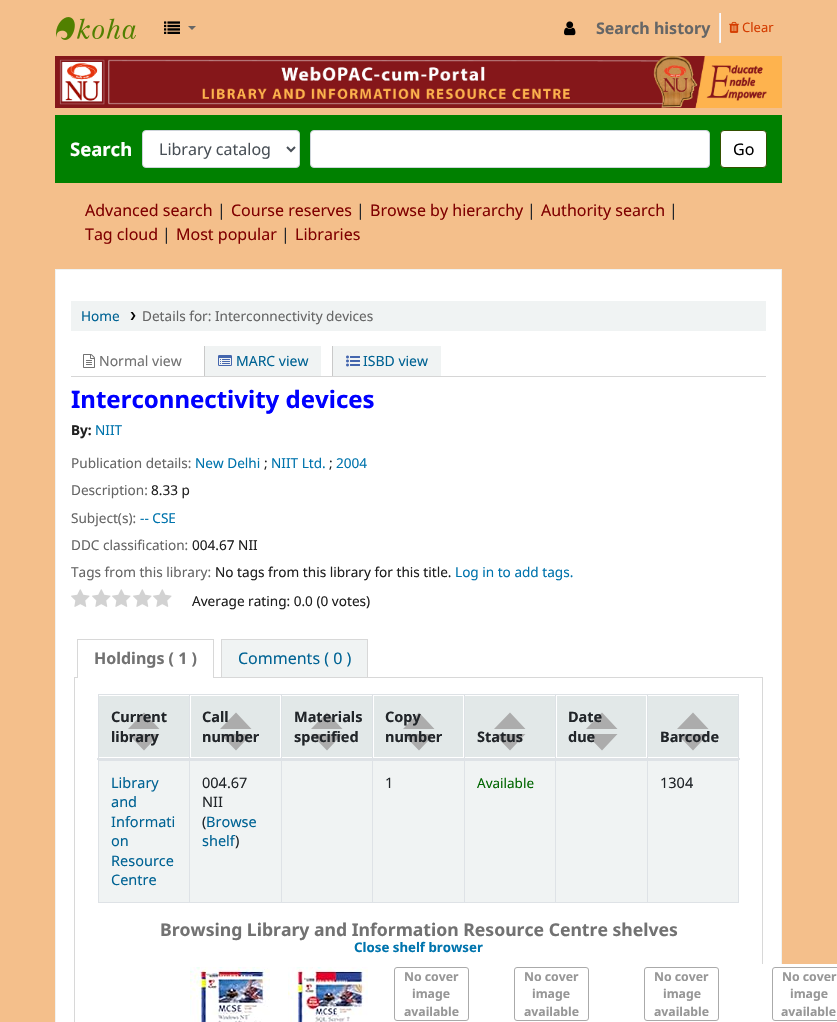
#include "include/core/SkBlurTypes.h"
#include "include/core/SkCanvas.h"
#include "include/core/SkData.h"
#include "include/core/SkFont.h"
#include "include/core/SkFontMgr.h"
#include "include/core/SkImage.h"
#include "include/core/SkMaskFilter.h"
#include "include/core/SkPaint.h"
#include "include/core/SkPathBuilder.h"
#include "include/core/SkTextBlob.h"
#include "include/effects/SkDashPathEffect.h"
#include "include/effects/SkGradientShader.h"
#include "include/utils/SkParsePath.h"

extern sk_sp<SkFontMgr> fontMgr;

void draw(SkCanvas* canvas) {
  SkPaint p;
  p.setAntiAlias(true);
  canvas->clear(SkColorSetRGB(244, 191, 139));
  canvas->drawImageRect(SkImages::DeferredFromEncodedData(SkData::MakeFromFileName("images/1.png")), SkRect::MakeLTRB(56, 17, 136, 40), SkSamplingOptions());
  canvas->drawImageRect(SkImages::DeferredFromEncodedData(SkData::MakeFromFileName("images/2.png")), SkRect::MakeLTRB(164, 21, 180, 34), SkSamplingOptions());
  p.setColor(SkColorSetRGB(102, 102, 102));
  canvas->drawPath(SkPathBuilder().moveTo(188, 26).lineTo(196, 26).lineTo(192, 30).close().detach(), p);
  canvas->drawImageRect(SkImages::DeferredFromEncodedData(SkData::MakeFromFileName("images/3.png")), SkRect::MakeLTRB(564, 21, 576, 36), SkSamplingOptions());
  p.setColor(SkColorSetRGB(252, 249, 252));
  canvas->drawRect(SkRect::MakeLTRB(720, 13, 721, 43), p);
  p.setColor(SkColorSetRGB(238, 238, 238));
  canvas->drawRect(SkRect::MakeLTRB(719, 42, 721, 43), p);
  canvas->drawRect(SkRect::MakeLTRB(719, 13, 720, 43), p);
  canvas->drawImageRect(SkImages::DeferredFromEncodedData(SkData::MakeFromFileName("images/4.png")), SkRect::MakeLTRB(729, 21, 740, 33), SkSamplingOptions());
  canvas->drawImageRect(SkImages::DeferredFromEncodedData(SkData::MakeFromFileName("images/5.png")), SkRect::MakeLTRB(55, 56, 782, 108), SkSamplingOptions());
  p.setColor(SkColorSetRGB(0, 128, 0));
  canvas->drawRect(SkRect::MakeLTRB(55, 115, 782, 183), p);
  p.setColor(SK_ColorWHITE);
  canvas->drawRoundRect(SkRect::MakeLTRB(142.5f, 130.5f, 299.5f, 167.5f), 3.5f, 3.5f, p);
  p.setStyle(SkPaint::kStroke_Style);
  p.setStrokeWidth(1);
  p.setColor(SkColorSetRGB(206, 212, 218));
  canvas->drawRoundRect(SkRect::MakeLTRB(142.5f, 130.5f, 299.5f, 167.5f), 3.5f, 3.5f, p);
  p.setStrokeWidth(2);
  p.setColor(SkColorSetRGB(73, 80, 87));
  canvas->drawPath(SkPathBuilder().moveTo(287, 147).lineTo(291, 151).lineTo(295, 147).detach(), p);
  p.setStyle(SkPaint::kFill_Style);
  p.setColor(SK_ColorWHITE);
  canvas->drawRoundRect(SkRect::MakeLTRB(310.5f, 130.5f, 709.5f, 167.5f), 3.5f, 3.5f, p);
  p.setStyle(SkPaint::kStroke_Style);
  p.setStrokeWidth(1);
  p.setColor(SkColorSetRGB(206, 212, 218));
  canvas->drawRoundRect(SkRect::MakeLTRB(310.5f, 130.5f, 709.5f, 167.5f), 3.5f, 3.5f, p);
  p.setStyle(SkPaint::kFill_Style);
  p.setColor(SK_ColorWHITE);
  canvas->drawRoundRect(SkRect::MakeLTRB(720.5f, 130.5f, 766.5f, 167.5f), 3.5f, 3.5f, p);
  p.setStyle(SkPaint::kStroke_Style);
  p.setColor(SkColorSetRGB(51, 80, 0));
  canvas->drawRoundRect(SkRect::MakeLTRB(720.5f, 130.5f, 766.5f, 167.5f), 3.5f, 3.5f, p);
  p.setStyle(SkPaint::kFill_Style);
  p.setColor(SK_ColorWHITE);
  canvas->drawRect(SkRect::MakeLTRB(55.5f, 269.5f, 781.5f, 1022.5f), p);
  p.setStyle(SkPaint::kStroke_Style);
  p.setColor(SkColorSetRGB(240, 243, 243));
  canvas->drawRect(SkRect::MakeLTRB(55.5f, 269.5f, 781.5f, 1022.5f), p);
  p.setStyle(SkPaint::kFill_Style);
  canvas->drawRect(SkRect::MakeLTRB(71, 301, 766, 331), p);
  canvas->drawImageRect(SkImages::DeferredFromEncodedData(SkData::MakeFromFileName("images/6.png")), SkRect::MakeLTRB(130, 312, 136, 320), SkSamplingOptions());
  p.setColor(SkColorSetRGB(214, 214, 214));
  canvas->drawRect(SkRect::MakeLTRB(71, 376, 766, 377), p);
  canvas->drawImageRect(SkImages::DeferredFromEncodedData(SkData::MakeFromFileName("images/7.png")), SkRect::MakeLTRB(83, 354, 95, 368), SkSamplingOptions());
  p.setColor(SkColorSetRGB(240, 243, 243));
  canvas->drawRect(SkRect::MakeLTRB(205, 346, 321, 376), p);
  p.setColor(SkColorSetRGB(201, 201, 201));
  canvas->drawRect(SkRect::MakeLTRB(204, 346, 205, 376), p);
  canvas->drawImageRect(SkImages::DeferredFromEncodedData(SkData::MakeFromFileName("images/8.png")), SkRect::MakeLTRB(218, 355, 232, 366), SkSamplingOptions());
  p.setColor(SkColorSetRGB(240, 243, 243));
  canvas->drawRect(SkRect::MakeLTRB(333, 346, 441, 376), p);
  p.setColor(SkColorSetRGB(201, 201, 201));
  canvas->drawRect(SkRect::MakeLTRB(332, 346, 333, 376), p);
  canvas->drawImageRect(SkImages::DeferredFromEncodedData(SkData::MakeFromFileName("images/9.png")), SkRect::MakeLTRB(346, 355, 360, 367), SkSamplingOptions());
  canvas->drawImageRect(SkImages::DeferredFromEncodedData(SkData::MakeFromFileName("images/10.png")), SkRect::MakeLTRB(71, 589, 90, 607), SkSamplingOptions());
  canvas->drawImageRect(SkImages::DeferredFromEncodedData(SkData::MakeFromFileName("images/10.png")), SkRect::MakeLTRB(92, 589, 111, 607), SkSamplingOptions());
  canvas->drawImageRect(SkImages::DeferredFromEncodedData(SkData::MakeFromFileName("images/10.png")), SkRect::MakeLTRB(112, 589, 131, 607), SkSamplingOptions());
  canvas->drawImageRect(SkImages::DeferredFromEncodedData(SkData::MakeFromFileName("images/10.png")), SkRect::MakeLTRB(133, 589, 152, 607), SkSamplingOptions());
  canvas->drawImageRect(SkImages::DeferredFromEncodedData(SkData::MakeFromFileName("images/10.png")), SkRect::MakeLTRB(153, 589, 172, 607), SkSamplingOptions());
  p.setStyle(SkPaint::kStroke_Style);
  p.setColor(SkColorSetRGB(216, 216, 216));
  canvas->drawRect(SkRect::MakeLTRB(74.5f, 677.5f, 762.5f, 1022.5f), p);
  p.setStyle(SkPaint::kFill_Style);
  p.setColor(SK_ColorWHITE);
  canvas->drawRect(SkRect::MakeLTRB(78, 677, 213, 678), p);
  p.setColor(SkColorSetRGB(216, 216, 216));
  canvas->drawRect(SkRect::MakeLTRB(77, 639, 214, 640), p);
  canvas->drawRect(SkRect::MakeLTRB(213, 639, 214, 678), p);
  canvas->drawRect(SkRect::MakeLTRB(77, 639, 78, 678), p);
  p.setColor(SkColorSetRGB(240, 243, 243));
  canvas->drawRect(SkRect::MakeLTRB(222, 640, 367, 677), p);
  p.setColor(SkColorSetRGB(216, 216, 216));
  canvas->drawRect(SkRect::MakeLTRB(221, 639, 368, 640), p);
  canvas->drawRect(SkRect::MakeLTRB(367, 639, 368, 677), p);
  canvas->drawRect(SkRect::MakeLTRB(221, 639, 222, 677), p);
  p.setColor(SkColorSetRGB(222, 226, 230));
  canvas->drawRect(SkRect::MakeLTRB(98, 694, 739, 695), p);
  canvas->drawRect(SkRect::MakeLTRB(738, 694, 739, 903), p);
  canvas->drawRect(SkRect::MakeLTRB(98, 902, 739, 903), p);
  canvas->drawRect(SkRect::MakeLTRB(98, 694, 99, 903), p);
  p.setColor(SkColorSetRGB(226, 232, 232));
  canvas->drawRect(SkRect::MakeLTRB(99, 696, 189, 757), p);
  p.setColor(SkColorSetRGB(172, 172, 172));
  canvas->drawPath(SkPathBuilder().moveTo(159.5f, 734).lineTo(128, 734).lineTo(144, 750.5f).close().moveTo(159.5f, 729).lineTo(128, 729).lineTo(144, 712.5f).close().detach(), p);
  p.setColor(SkColorSetRGB(226, 232, 232));
  canvas->drawRect(SkRect::MakeLTRB(191, 696, 280, 757), p);
  p.setColor(SkColorSetRGB(172, 172, 172));
  canvas->drawPath(SkPathBuilder().moveTo(251.5f, 734).lineTo(220, 734).lineTo(236, 750.5f).close().moveTo(251.5f, 729).lineTo(220, 729).lineTo(236, 712.5f).close().detach(), p);
  p.setColor(SkColorSetRGB(226, 232, 232));
  canvas->drawRect(SkRect::MakeLTRB(282, 696, 372, 757), p);
  p.setColor(SkColorSetRGB(172, 172, 172));
  canvas->drawPath(SkPathBuilder().moveTo(342.5f, 734).lineTo(311, 734).lineTo(327, 750.5f).close().moveTo(342.5f, 729).lineTo(311, 729).lineTo(327, 712.5f).close().detach(), p);
  p.setColor(SkColorSetRGB(226, 232, 232));
  canvas->drawRect(SkRect::MakeLTRB(374, 696, 463, 757), p);
  p.setColor(SkColorSetRGB(172, 172, 172));
  canvas->drawPath(SkPathBuilder().moveTo(434.5f, 734).lineTo(403, 734).lineTo(419, 750.5f).close().moveTo(434.5f, 729).lineTo(403, 729).lineTo(419, 712.5f).close().detach(), p);
  p.setColor(SkColorSetRGB(226, 232, 232));
  canvas->drawRect(SkRect::MakeLTRB(465, 696, 555, 757), p);
  p.setColor(SkColorSetRGB(172, 172, 172));
  canvas->drawPath(SkPathBuilder().moveTo(525.5f, 734).lineTo(494, 734).lineTo(510, 750.5f).close().moveTo(525.5f, 729).lineTo(494, 729).lineTo(510, 712.5f).close().detach(), p);
  p.setColor(SkColorSetRGB(226, 232, 232));
  canvas->drawRect(SkRect::MakeLTRB(557, 696, 646, 757), p);
  p.setColor(SkColorSetRGB(172, 172, 172));
  canvas->drawPath(SkPathBuilder().moveTo(617.5f, 734).lineTo(586, 734).lineTo(602, 750.5f).close().moveTo(617.5f, 729).lineTo(586, 729).lineTo(602, 712.5f).close().detach(), p);
  p.setColor(SkColorSetRGB(226, 232, 232));
  canvas->drawRect(SkRect::MakeLTRB(648, 696, 738, 757), p);
  p.setColor(SkColorSetRGB(172, 172, 172));
  canvas->drawPath(SkPathBuilder().moveTo(708.5f, 734).lineTo(677, 734).lineTo(693, 750.5f).close().moveTo(708.5f, 729).lineTo(677, 729).lineTo(693, 712.5f).close().detach(), p);
  p.setColor(SkColorSetRGB(222, 226, 230));
  canvas->drawRect(SkRect::MakeLTRB(647, 760, 739, 761), p);
  canvas->drawRect(SkRect::MakeLTRB(647, 694, 648, 903), p);
  canvas->drawRect(SkRect::MakeLTRB(555, 760, 648, 761), p);
  canvas->drawRect(SkRect::MakeLTRB(555, 694, 556, 903), p);
  canvas->drawRect(SkRect::MakeLTRB(464, 760, 556, 761), p);
  canvas->drawRect(SkRect::MakeLTRB(464, 694, 465, 903), p);
  canvas->drawRect(SkRect::MakeLTRB(372, 760, 465, 761), p);
  canvas->drawRect(SkRect::MakeLTRB(372, 694, 373, 903), p);
  canvas->drawRect(SkRect::MakeLTRB(281, 760, 373, 761), p);
  canvas->drawRect(SkRect::MakeLTRB(281, 694, 282, 903), p);
  canvas->drawRect(SkRect::MakeLTRB(189, 760, 282, 761), p);
  canvas->drawRect(SkRect::MakeLTRB(189, 694, 190, 903), p);
  canvas->drawRect(SkRect::MakeLTRB(97, 758, 740, 760), p);
  p.setColor(SkColorSetRGB(240, 243, 243));
  canvas->drawRect(SkRect::MakeLTRB(99, 761, 189, 902), p);
  p.setColor(SkColorSetRGB(222, 226, 230));
  canvas->drawRect(SkRect::MakeLTRB(98, 760, 190, 761), p);
  p.setColor(SkColorSetRGB(240, 243, 243));
  canvas->drawRect(SkRect::MakeLTRB(190, 761, 281, 902), p);
  canvas->drawRect(SkRect::MakeLTRB(282, 761, 372, 902), p);
  canvas->drawRect(SkRect::MakeLTRB(373, 761, 464, 902), p);
  canvas->drawRect(SkRect::MakeLTRB(465, 761, 555, 902), p);
  canvas->drawRect(SkRect::MakeLTRB(556, 761, 647, 902), p);
  canvas->drawRect(SkRect::MakeLTRB(648, 761, 738, 902), p);
  p.setColor(SK_ColorWHITE);
  canvas->drawRect(SkRect::MakeLTRB(762, 964, 837, 1022), p);
  canvas->drawImageRect(SkImages::DeferredFromEncodedData(SkData::MakeFromFileName("images/11.png")), SkRect::MakeLTRB(190, 967, 270, 1022), SkSamplingOptions());
  canvas->drawImageRect(SkImages::DeferredFromEncodedData(SkData::MakeFromFileName("images/12.png")), SkRect::MakeLTRB(288, 967, 368, 1022), SkSamplingOptions());
  p.setStyle(SkPaint::kStroke_Style);
  p.setColor(SkColorSetRGB(170, 170, 170));
  canvas->drawRoundRect(SkRect::MakeLTRB(394.5f, 967.5f, 468.5f, 1020.5f), 2.5f, 2.5f, p);
  canvas->drawRoundRect(SkRect::MakeLTRB(514.5f, 967.5f, 588.5f, 1020.5f), 2.5f, 2.5f, p);
  canvas->drawRoundRect(SkRect::MakeLTRB(644.5f, 967.5f, 718.5f, 1020.5f), 2.5f, 2.5f, p);
  canvas->drawRoundRect(SkRect::MakeLTRB(772.5f, 967.5f, 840.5f, 1020.5f), 2.5f, 2.5f, p);
  SkFont font1(fontMgr->matchFamilyStyle("Noto Sans", SkFontStyle::Bold()), 16);
  font1.setSubpixel(true);
  p.setStyle(SkPaint::kFill_Style);
  p.setColor(SkColorSetRGB(102, 102, 102));
  canvas->drawString("Search history", 596, 34, font1, p);
  SkFont font2(fontMgr->matchFamilyStyle("Noto Sans", SkFontStyle::Normal()), 13);
  font2.setSubpixel(true);
  p.setColor(SkColorSetRGB(212, 60, 0));
  canvas->drawString("Clear", 742, 32, font2, p);
  SkFont font3(fontMgr->matchFamilyStyle("Noto Sans", SkFontStyle::Bold()), 18.5f);
  font3.setSubpixel(true);
  p.setColor(SK_ColorWHITE);
  canvas->drawString("Search", 70, 156, font3, p);
  SkFont font4(fontMgr->matchFamilyStyle("Noto Sans", SkFontStyle::Normal()), 16);
  font4.setSubpixel(true);
  p.setColor(SkColorSetRGB(73, 80, 87));
  canvas->drawString("Library catalog", 159, 155, font4, p);
  p.setColor(SK_ColorBLACK);
  canvas->drawString("Go", 733, 155, font4, p);
  p.setColor(SkColorSetRGB(128, 0, 0));
  canvas->drawString("Advanced search", 85, 216, font4, p);
  p.setColor(SkColorSetRGB(33, 37, 41));
  canvas->drawString("|", 217, 216, font4, p);
  p.setColor(SkColorSetRGB(128, 0, 0));
  canvas->drawString("Course reserves", 231, 216, font4, p);
  p.setColor(SkColorSetRGB(33, 37, 41));
  canvas->drawString("|", 356, 216, font4, p);
  p.setColor(SkColorSetRGB(128, 0, 0));
  canvas->drawString("Browse by hierarchy", 370, 216, font4, p);
  p.setColor(SkColorSetRGB(33, 37, 41));
  canvas->drawString("|", 527, 216, font4, p);
  p.setColor(SkColorSetRGB(128, 0, 0));
  canvas->drawString("Authority search", 541, 216, font4, p);
  p.setColor(SkColorSetRGB(33, 37, 41));
  canvas->drawString("|", 669, 216, font4, p);
  p.setColor(SkColorSetRGB(128, 0, 0));
  canvas->drawString("Tag cloud", 85, 240, font4, p);
  p.setColor(SkColorSetRGB(33, 37, 41));
  canvas->drawString("|", 162, 240, font4, p);
  p.setColor(SkColorSetRGB(128, 0, 0));
  canvas->drawString("Most popular", 176, 240, font4, p);
  p.setColor(SkColorSetRGB(33, 37, 41));
  canvas->drawString("|", 281, 240, font4, p);
  p.setColor(SkColorSetRGB(128, 0, 0));
  canvas->drawString("Libraries", 295, 240, font4, p);
  SkFont font5(fontMgr->matchFamilyStyle("Noto Sans", SkFontStyle::Normal()), 13.6f);
  font5.setSubpixel(true);
  p.setColor(SkColorSetRGB(0, 99, 148));
  canvas->drawString("Home", 81, 321, font5, p);
  p.setColor(SkColorSetRGB(102, 102, 102));
  canvas->drawString("Details for: Interconnectivity devices", 142, 321, font5, p);
  SkFont font6(fontMgr->matchFamilyStyle("Noto Sans", SkFontStyle::Normal()), 14);
  font6.setSubpixel(true);
  p.setColor(SkColorSetRGB(114, 114, 114));
  canvas->drawString("Normal view", 99, 366, font6, p);
  p.setColor(SkColorSetRGB(0, 99, 148));
  canvas->drawString("MARC view", 236, 366, font6, p);
  canvas->drawString("ISBD view", 363, 366, font6, p);
  SkFont font7(fontMgr->matchFamilyStyle("Noto Sans", SkFontStyle::Bold()), 24);
  font7.setSubpixel(true);
  p.setColor(SkColorSetRGB(0, 0, 255));
  canvas->drawString("Interconnectivity devices", 71, 408, font7, p);
  SkFont font8(fontMgr->matchFamilyStyle("Noto Sans", SkFontStyle::Bold()), 13.6f);
  font8.setSubpixel(true);
  p.setColor(SkColorSetRGB(32, 32, 32));
  canvas->drawString("By:", 71, 435, font8, p);
  p.setColor(SkColorSetRGB(0, 116, 173));
  canvas->drawString("NIIT", 95, 435, font5, p);
  p.setColor(SkColorSetRGB(102, 102, 102));
  canvas->drawString("Publication details:", 71, 468, font5, p);
  p.setColor(SkColorSetRGB(0, 116, 173));
  canvas->drawString("New Delhi", 195, 468, font5, p);
  p.setColor(SkColorSetRGB(32, 32, 32));
  canvas->drawString(";", 264, 468, font5, p);
  p.setColor(SkColorSetRGB(0, 116, 173));
  canvas->drawString("NIIT Ltd.", 271, 468, font5, p);
  p.setColor(SkColorSetRGB(32, 32, 32));
  canvas->drawString(";", 329, 468, font5, p);
  p.setColor(SkColorSetRGB(0, 116, 173));
  canvas->drawString("2004", 336, 468, font5, p);
  p.setColor(SkColorSetRGB(102, 102, 102));
  canvas->drawString("Description:", 71, 495, font5, p);
  p.setColor(SkColorSetRGB(32, 32, 32));
  canvas->drawString("8.33 p", 151, 495, font5, p);
  p.setColor(SkColorSetRGB(102, 102, 102));
  canvas->drawString("Subject(s):", 71, 523, font5, p);
  p.setColor(SkColorSetRGB(0, 116, 173));
  canvas->drawString("-- CSE", 140, 523, font5, p);
  p.setColor(SkColorSetRGB(102, 102, 102));
  canvas->drawString("DDC classification:", 71, 550, font5, p);
  p.setColor(SkColorSetRGB(32, 32, 32));
  canvas->drawString("004.67 NII", 192, 550, font5, p);
  p.setColor(SkColorSetRGB(102, 102, 102));
  canvas->drawString("Tags from this library:", 71, 577, font5, p);
  p.setColor(SkColorSetRGB(32, 32, 32));
  canvas->drawString("No tags from this library for this title.", 215, 577, font5, p);
  p.setColor(SkColorSetRGB(0, 116, 173));
  canvas->drawString("Log in to add tags.", 455, 577, font5, p);
  p.setColor(SkColorSetRGB(32, 32, 32));
  canvas->drawString("Average rating: 0.0 (0 votes)", 192, 606, font5, p);
  p.setColor(SkColorSetRGB(114, 114, 114));
  canvas->drawString("Holdings ( 1 )", 94, 664, font1, p);
  p.setColor(SkColorSetRGB(0, 99, 148));
  canvas->drawString("Comments ( 0 )", 238, 664, font4, p);
  SkFont font9(fontMgr->matchFamilyStyle("Noto Sans", SkFontStyle::Bold()), 14.5f);
  font9.setSubpixel(true);
  p.setColor(SkColorSetRGB(33, 37, 41));
  canvas->drawString("Current", 111, 722, font9, p);
  canvas->drawString("library", 111, 742, font9, p);
  canvas->drawString("Call", 202, 722, font9, p);
  canvas->drawString("number", 202, 742, font9, p);
  canvas->drawString("Materials", 294, 722, font9, p);
  canvas->drawString("specified", 294, 742, font9, p);
  canvas->drawString("Copy", 385, 722, font9, p);
  canvas->drawString("number", 385, 742, font9, p);
  canvas->drawString("Status", 477, 742, font9, p);
  canvas->drawString("Date", 568, 722, font9, p);
  canvas->drawString("due", 568, 742, font9, p);
  canvas->drawString("Barcode", 660, 742, font9, p);
  SkFont font10(fontMgr->matchFamilyStyle("Noto Sans", SkFontStyle::Normal()), 14.5f);
  font10.setSubpixel(true);
  p.setColor(SkColorSetRGB(0, 99, 148));
  canvas->drawString("Library", 111, 788, font10, p);
  canvas->drawString("and", 111, 807, font10, p);
  canvas->drawString("Informati", 111, 827, font10, p);
  canvas->drawString("on", 111, 846, font10, p);
  canvas->drawString("Resource", 111, 866, font10, p);
  canvas->drawString("Centre", 111, 885, font10, p);
  p.setColor(SkColorSetRGB(33, 37, 41));
  canvas->drawString("004.67", 202, 788, font10, p);
  canvas->drawString("NII", 202, 807, font10, p);
  canvas->drawString("(", 202, 827, font10, p);
  p.setColor(SkColorSetRGB(0, 99, 148));
  canvas->drawString("Browse", 206, 827, font10, p);
  canvas->drawString("shelf", 202, 846, font10, p);
  p.setColor(SkColorSetRGB(33, 37, 41));
  canvas->drawString(")", 235, 846, font10, p);
  canvas->drawString("1", 385, 788, font10, p);
  SkFont font11(fontMgr->matchFamilyStyle("Noto Sans", SkFontStyle::Normal()), 13.5f);
  font11.setSubpixel(true);
  p.setColor(SkColorSetRGB(0, 102, 0));
  canvas->drawString("Available", 477, 788, font11, p);
  p.setColor(SkColorSetRGB(33, 37, 41));
  canvas->drawString("1304", 660, 788, font10, p);
  SkFont font12(fontMgr->matchFamilyStyle("Noto Sans", SkFontStyle::Bold()), 17.6f);
  font12.setSubpixel(true);
  p.setColor(SkColorSetRGB(114, 114, 114));
  canvas->drawString("Browsing Library and Information Resource Centre shelves", 160, 936, font12, p);
  SkFont font13(fontMgr->matchFamilyStyle("Noto Sans", SkFontStyle::Bold()), 13.25f);
  font13.setSubpixel(true);
  p.setColor(SkColorSetRGB(0, 116, 173));
  canvas->drawString("Close shelf browser", 354, 952, font13, p);
  SkFont font14(fontMgr->matchFamilyStyle("Noto Sans", SkFontStyle::Bold()), 12.25f);
  font14.setSubpixel(true);
  p.setColor(SkColorSetRGB(151, 151, 151));
  canvas->drawString("No cover", 404, 981, font14, p);
  canvas->drawString("image", 412, 998, font14, p);
  canvas->drawString("available", 404, 1016, font14, p);
  canvas->drawString("No cover", 524, 981, font14, p);
  canvas->drawString("image", 532, 998, font14, p);
  canvas->drawString("available", 524, 1016, font14, p);
  canvas->drawString("No cover", 654, 981, font14, p);
  canvas->drawString("image", 663, 998, font14, p);
  canvas->drawString("available", 654, 1016, font14, p);
  canvas->drawString("No cover", 782, 981, font14, p);
  canvas->drawString("image", 790, 998, font14, p);
  canvas->drawString("available", 781, 1016, font14, p);
}
